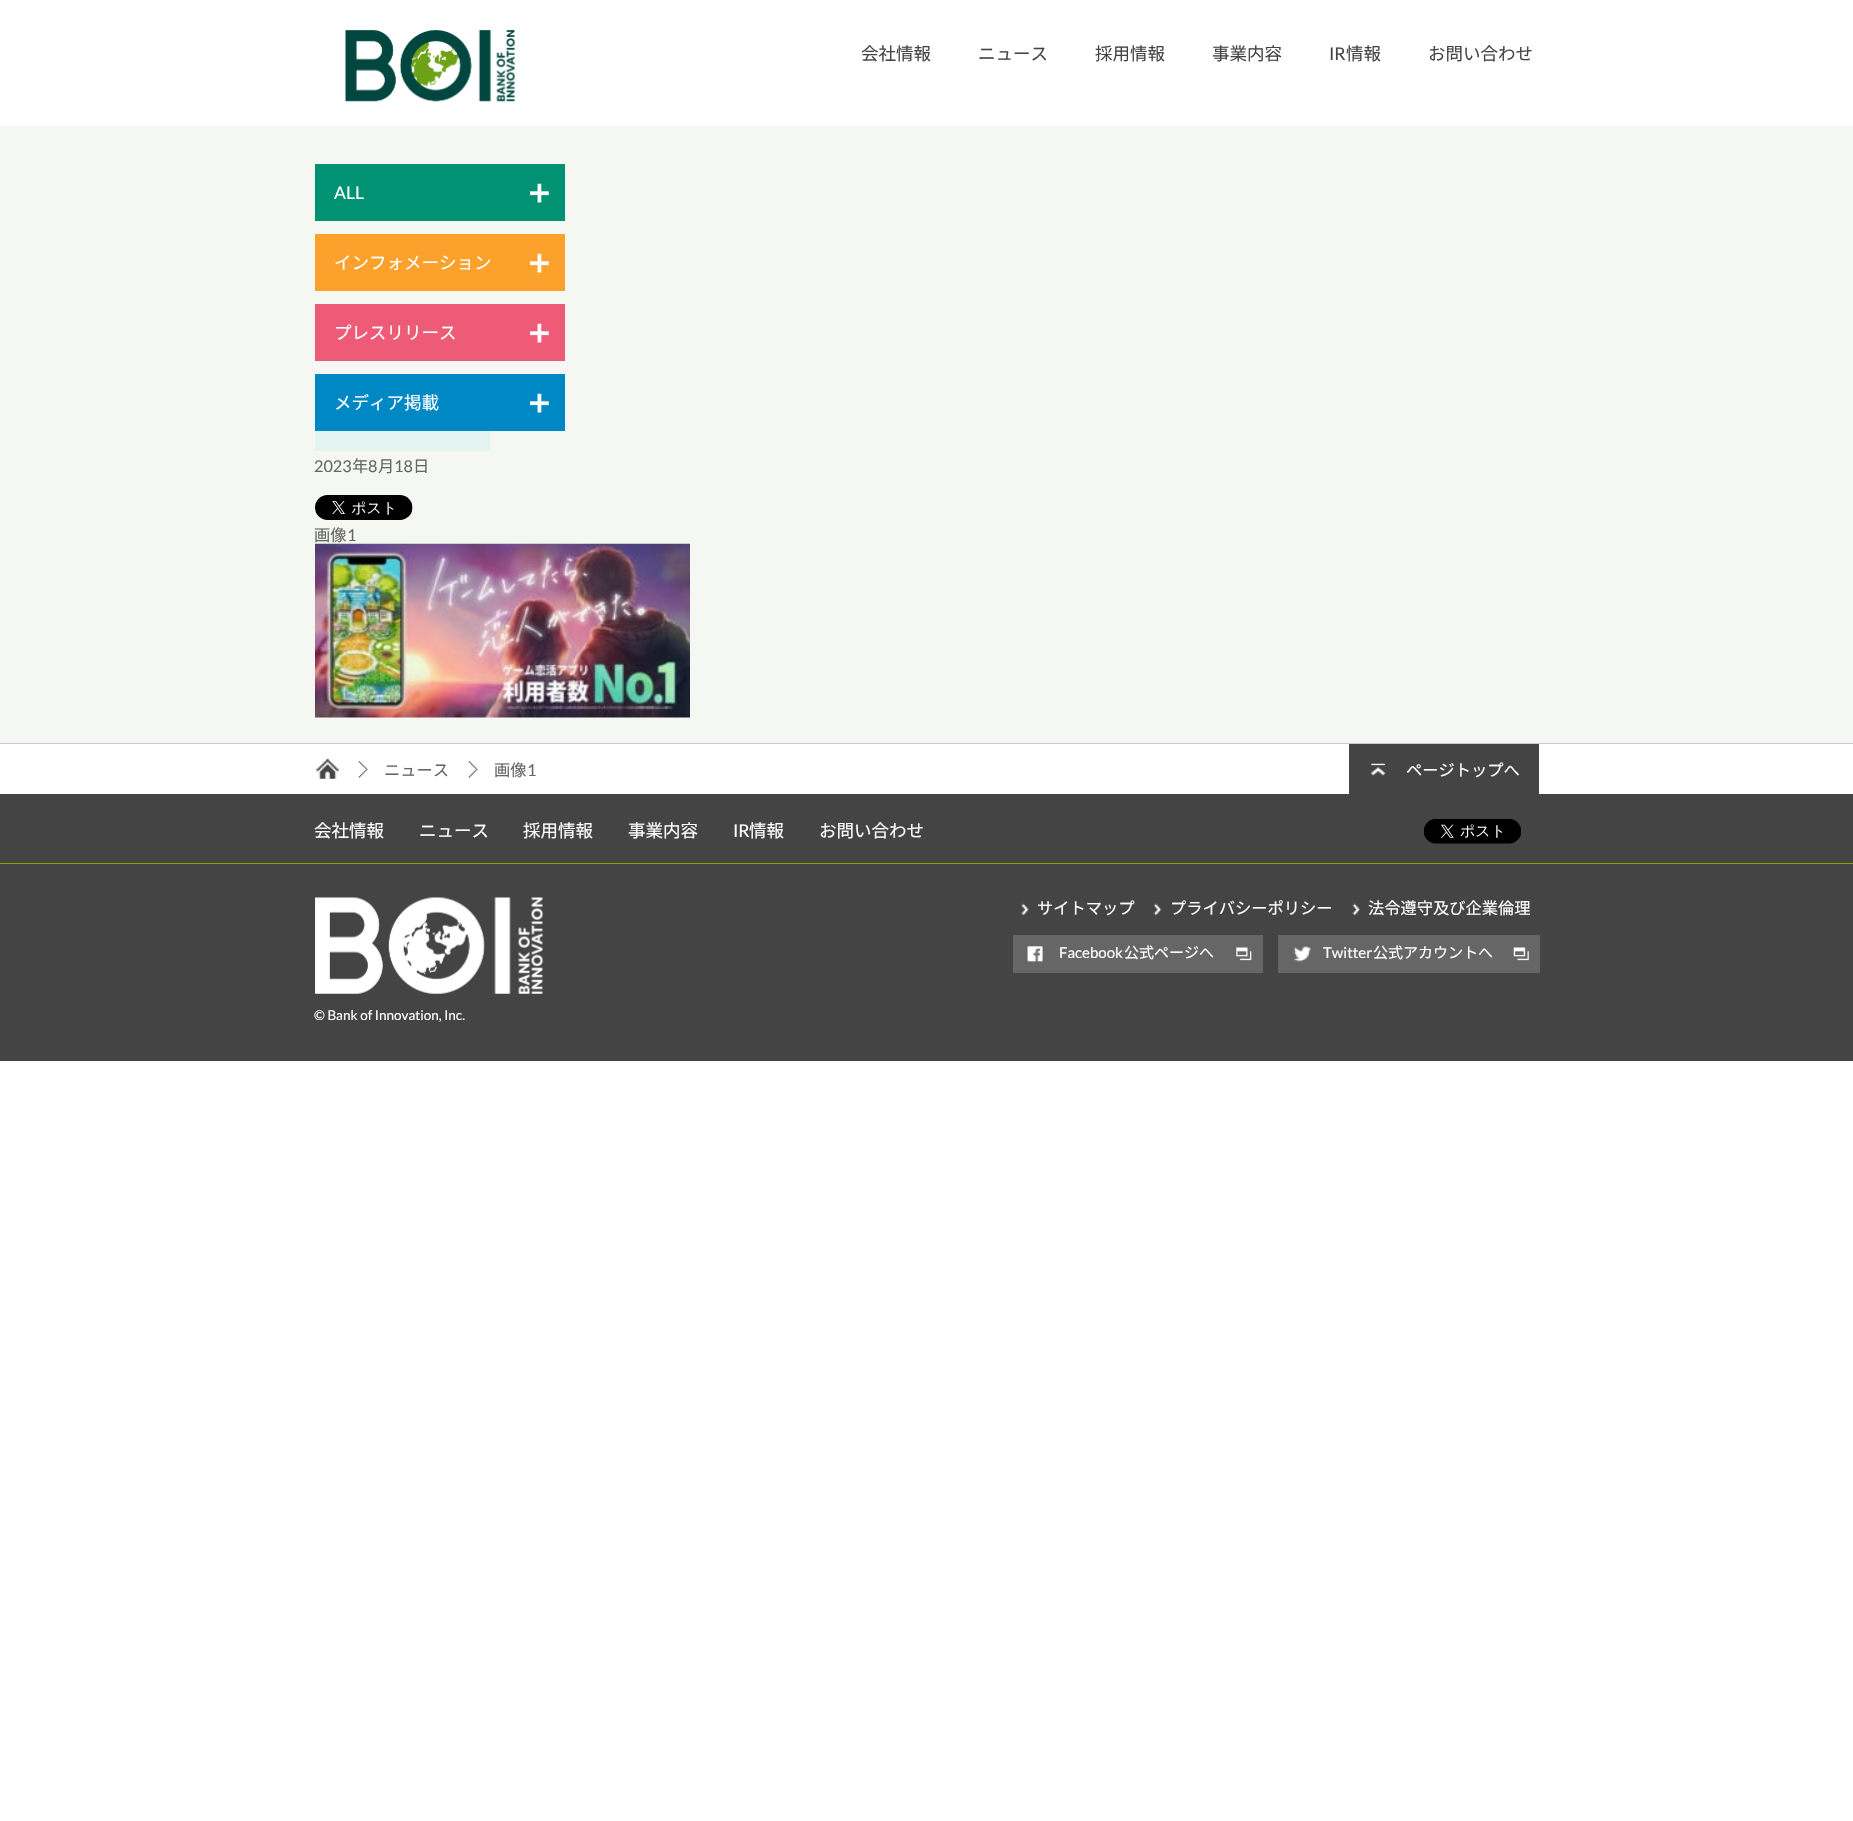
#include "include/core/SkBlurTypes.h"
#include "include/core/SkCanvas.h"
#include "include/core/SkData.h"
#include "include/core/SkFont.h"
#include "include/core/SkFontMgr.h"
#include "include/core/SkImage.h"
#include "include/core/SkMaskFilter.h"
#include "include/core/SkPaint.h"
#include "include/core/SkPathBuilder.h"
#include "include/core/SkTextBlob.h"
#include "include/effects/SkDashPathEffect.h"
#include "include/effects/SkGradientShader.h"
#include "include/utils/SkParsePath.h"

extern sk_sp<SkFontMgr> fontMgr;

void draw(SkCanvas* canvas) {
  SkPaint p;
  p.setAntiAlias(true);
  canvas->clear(SK_ColorWHITE);
  canvas->drawImageRect(SkImages::DeferredFromEncodedData(SkData::MakeFromFileName("images/1.png")), SkRect::MakeLTRB(344, 30, 516, 102), SkSamplingOptions());
  p.setColor(SkColorSetRGB(245, 248, 242));
  canvas->drawRect(SkRect::MakeLTRB(0, 126, 1853, 743), p);
  p.setColor(SkColorSetRGB(0, 146, 114));
  canvas->drawRect(SkRect::MakeLTRB(315, 164, 565, 221), p);
  canvas->drawImageRect(SkImages::DeferredFromEncodedData(SkData::MakeFromFileName("images/2.png")), SkRect::MakeLTRB(530, 183, 549, 203), SkSamplingOptions());
  p.setColor(SkColorSetRGB(251, 161, 44));
  canvas->drawRect(SkRect::MakeLTRB(315, 234, 565, 291), p);
  canvas->drawImageRect(SkImages::DeferredFromEncodedData(SkData::MakeFromFileName("images/3.png")), SkRect::MakeLTRB(530, 253, 549, 273), SkSamplingOptions());
  p.setColor(SkColorSetRGB(237, 91, 118));
  canvas->drawRect(SkRect::MakeLTRB(315, 304, 565, 361), p);
  canvas->drawImageRect(SkImages::DeferredFromEncodedData(SkData::MakeFromFileName("images/4.png")), SkRect::MakeLTRB(530, 323, 549, 343), SkSamplingOptions());
  p.setColor(SkColorSetRGB(0, 136, 197));
  canvas->drawRect(SkRect::MakeLTRB(315, 374, 565, 431), p);
  canvas->drawImageRect(SkImages::DeferredFromEncodedData(SkData::MakeFromFileName("images/5.png")), SkRect::MakeLTRB(530, 393, 549, 413), SkSamplingOptions());
  p.setColor(SkColorSetRGB(228, 244, 241));
  canvas->drawRect(SkRect::MakeLTRB(315, 431, 490, 451), p);
  canvas->drawImageRect(SkImages::DeferredFromEncodedData(SkData::MakeFromFileName("images/6.png")), SkRect::MakeLTRB(315, 495, 413, 520), SkSamplingOptions());
  canvas->drawImageRect(SkImages::DeferredFromEncodedData(SkData::MakeFromFileName("images/7.png")), SkRect::MakeLTRB(315, 543, 690, 718), SkSamplingOptions());
  p.setColor(SkColorSetRGB(204, 204, 204));
  canvas->drawRect(SkRect::MakeLTRB(0, 743, 1853, 744), p);
  canvas->drawImageRect(SkImages::DeferredFromEncodedData(SkData::MakeFromFileName("images/8.png")), SkRect::MakeLTRB(316, 758, 339, 779), SkSamplingOptions());
  canvas->drawImageRect(SkImages::DeferredFromEncodedData(SkData::MakeFromFileName("images/9.png")), SkRect::MakeLTRB(358, 761, 368, 778), SkSamplingOptions());
  canvas->drawImageRect(SkImages::DeferredFromEncodedData(SkData::MakeFromFileName("images/9.png")), SkRect::MakeLTRB(468, 761, 478, 778), SkSamplingOptions());
  p.setColor(SkColorSetRGB(68, 68, 68));
  canvas->drawRect(SkRect::MakeLTRB(1349, 744, 1539, 794), p);
  canvas->drawImageRect(SkImages::DeferredFromEncodedData(SkData::MakeFromFileName("images/10.png")), SkRect::MakeLTRB(1371, 763, 1386, 776), SkSamplingOptions());
  canvas->drawRect(SkRect::MakeLTRB(0, 794, 1853, 1061), p);
  canvas->drawImageRect(SkImages::DeferredFromEncodedData(SkData::MakeFromFileName("images/11.png")), SkRect::MakeLTRB(1424, 819, 1521, 844), SkSamplingOptions());
  p.setColor(SkColorSetRGB(129, 170, 0));
  canvas->drawRect(SkRect::MakeLTRB(0, 863, 1853, 864), p);
  canvas->drawImageRect(SkImages::DeferredFromEncodedData(SkData::MakeFromFileName("images/12.png")), SkRect::MakeLTRB(1021, 903, 1029, 916), SkSamplingOptions());
  canvas->drawImageRect(SkImages::DeferredFromEncodedData(SkData::MakeFromFileName("images/13.png")), SkRect::MakeLTRB(1153, 903, 1162, 916), SkSamplingOptions());
  canvas->drawImageRect(SkImages::DeferredFromEncodedData(SkData::MakeFromFileName("images/14.png")), SkRect::MakeLTRB(1352, 903, 1360, 916), SkSamplingOptions());
  p.setColor(SkColorSetRGB(102, 102, 102));
  canvas->drawRect(SkRect::MakeLTRB(1013, 935, 1263, 973), p);
  canvas->drawImageRect(SkImages::DeferredFromEncodedData(SkData::MakeFromFileName("images/15.png")), SkRect::MakeLTRB(1027, 946, 1043, 962), SkSamplingOptions());
  canvas->drawImageRect(SkImages::DeferredFromEncodedData(SkData::MakeFromFileName("images/16.png")), SkRect::MakeLTRB(1236, 947, 1252, 961), SkSamplingOptions());
  canvas->drawRect(SkRect::MakeLTRB(1278, 935, 1540, 973), p);
  canvas->drawImageRect(SkImages::DeferredFromEncodedData(SkData::MakeFromFileName("images/17.png")), SkRect::MakeLTRB(1293, 946, 1312, 962), SkSamplingOptions());
  canvas->drawImageRect(SkImages::DeferredFromEncodedData(SkData::MakeFromFileName("images/18.png")), SkRect::MakeLTRB(1513, 947, 1529, 961), SkSamplingOptions());
  canvas->drawImageRect(SkImages::DeferredFromEncodedData(SkData::MakeFromFileName("images/19.png")), SkRect::MakeLTRB(315, 897, 543, 994), SkSamplingOptions());
  SkFont font1(fontMgr->matchFamilyStyle("Noto Sans JP", SkFontStyle::Normal()), 17.5f);
  font1.setSubpixel(true);
  p.setColor(SkColorSetRGB(68, 68, 68));
  canvas->drawString("会社情報", 861, 60, font1, p);
  canvas->drawString("ニュース", 978, 60, font1, p);
  canvas->drawString("採用情報", 1095, 60, font1, p);
  canvas->drawString("事業内容", 1212, 60, font1, p);
  SkFont font2(fontMgr->matchFamilyStyle("Lato", SkFontStyle::Normal()), 17.5f);
  font2.setSubpixel(true);
  canvas->drawString("IR", 1329, 60, font2, p);
  canvas->drawString("情報", 1346, 60, font1, p);
  canvas->drawString("お問い合わせ", 1428, 60, font1, p);
  p.setColor(SK_ColorWHITE);
  canvas->drawString("ALL", 334, 199, font2, p);
  canvas->drawString("インフォメーション", 334, 269, font1, p);
  canvas->drawString("プレスリリース", 334, 339, font1, p);
  canvas->drawString("メディア掲載", 334, 409, font1, p);
  SkFont font3(fontMgr->matchFamilyStyle("Lato", SkFontStyle::Normal()), 16.25f);
  font3.setSubpixel(true);
  p.setColor(SkColorSetRGB(102, 102, 102));
  canvas->drawString("2023", 314, 472, font3, p);
  SkFont font4(fontMgr->matchFamilyStyle("Noto Sans JP", SkFontStyle::Normal()), 16.25f);
  font4.setSubpixel(true);
  canvas->drawString("年", 352, 472, font4, p);
  canvas->drawString("8", 368, 472, font3, p);
  canvas->drawString("月", 378, 472, font4, p);
  canvas->drawString("18", 394, 472, font3, p);
  canvas->drawString("日", 413, 472, font4, p);
  canvas->drawString("画像", 314, 541, font4, p);
  canvas->drawString("1", 347, 541, font3, p);
  canvas->drawString("ニュース", 384, 776, font4, p);
  canvas->drawString("画像", 494, 776, font4, p);
  canvas->drawString("1", 527, 776, font3, p);
  p.setColor(SK_ColorWHITE);
  canvas->drawString("ページトップへ", 1406, 776, font4, p);
  canvas->drawString("会社情報", 314, 837, font1, p);
  canvas->drawString("ニュース", 419, 837, font1, p);
  canvas->drawString("採用情報", 523, 837, font1, p);
  canvas->drawString("事業内容", 628, 837, font1, p);
  canvas->drawString("IR", 733, 837, font2, p);
  canvas->drawString("情報", 749, 837, font1, p);
  canvas->drawString("お問い合わせ", 819, 837, font1, p);
  canvas->drawString("サイトマップ", 1037, 914, font4, p);
  canvas->drawString("プライバシーポリシー", 1170, 914, font4, p);
  canvas->drawString("法令遵守及び企業倫理", 1368, 914, font4, p);
  SkFont font5(fontMgr->matchFamilyStyle("Lato", SkFontStyle::Normal()), 15);
  font5.setSubpixel(true);
  canvas->drawString("Facebook", 1059, 958, font5, p);
  SkFont font6(fontMgr->matchFamilyStyle("Noto Sans JP", SkFontStyle::Normal()), 15);
  font6.setSubpixel(true);
  canvas->drawString("公式ページへ", 1124, 958, font6, p);
  canvas->drawString("Twitter", 1323, 958, font5, p);
  canvas->drawString("公式アカウントへ", 1373, 958, font6, p);
  SkFont font7(fontMgr->matchFamilyStyle("Lato", SkFontStyle::Normal()), 13.5f);
  font7.setSubpixel(true);
  canvas->drawString("© Bank of Innovation, Inc.", 314, 1020, font7, p);
}
